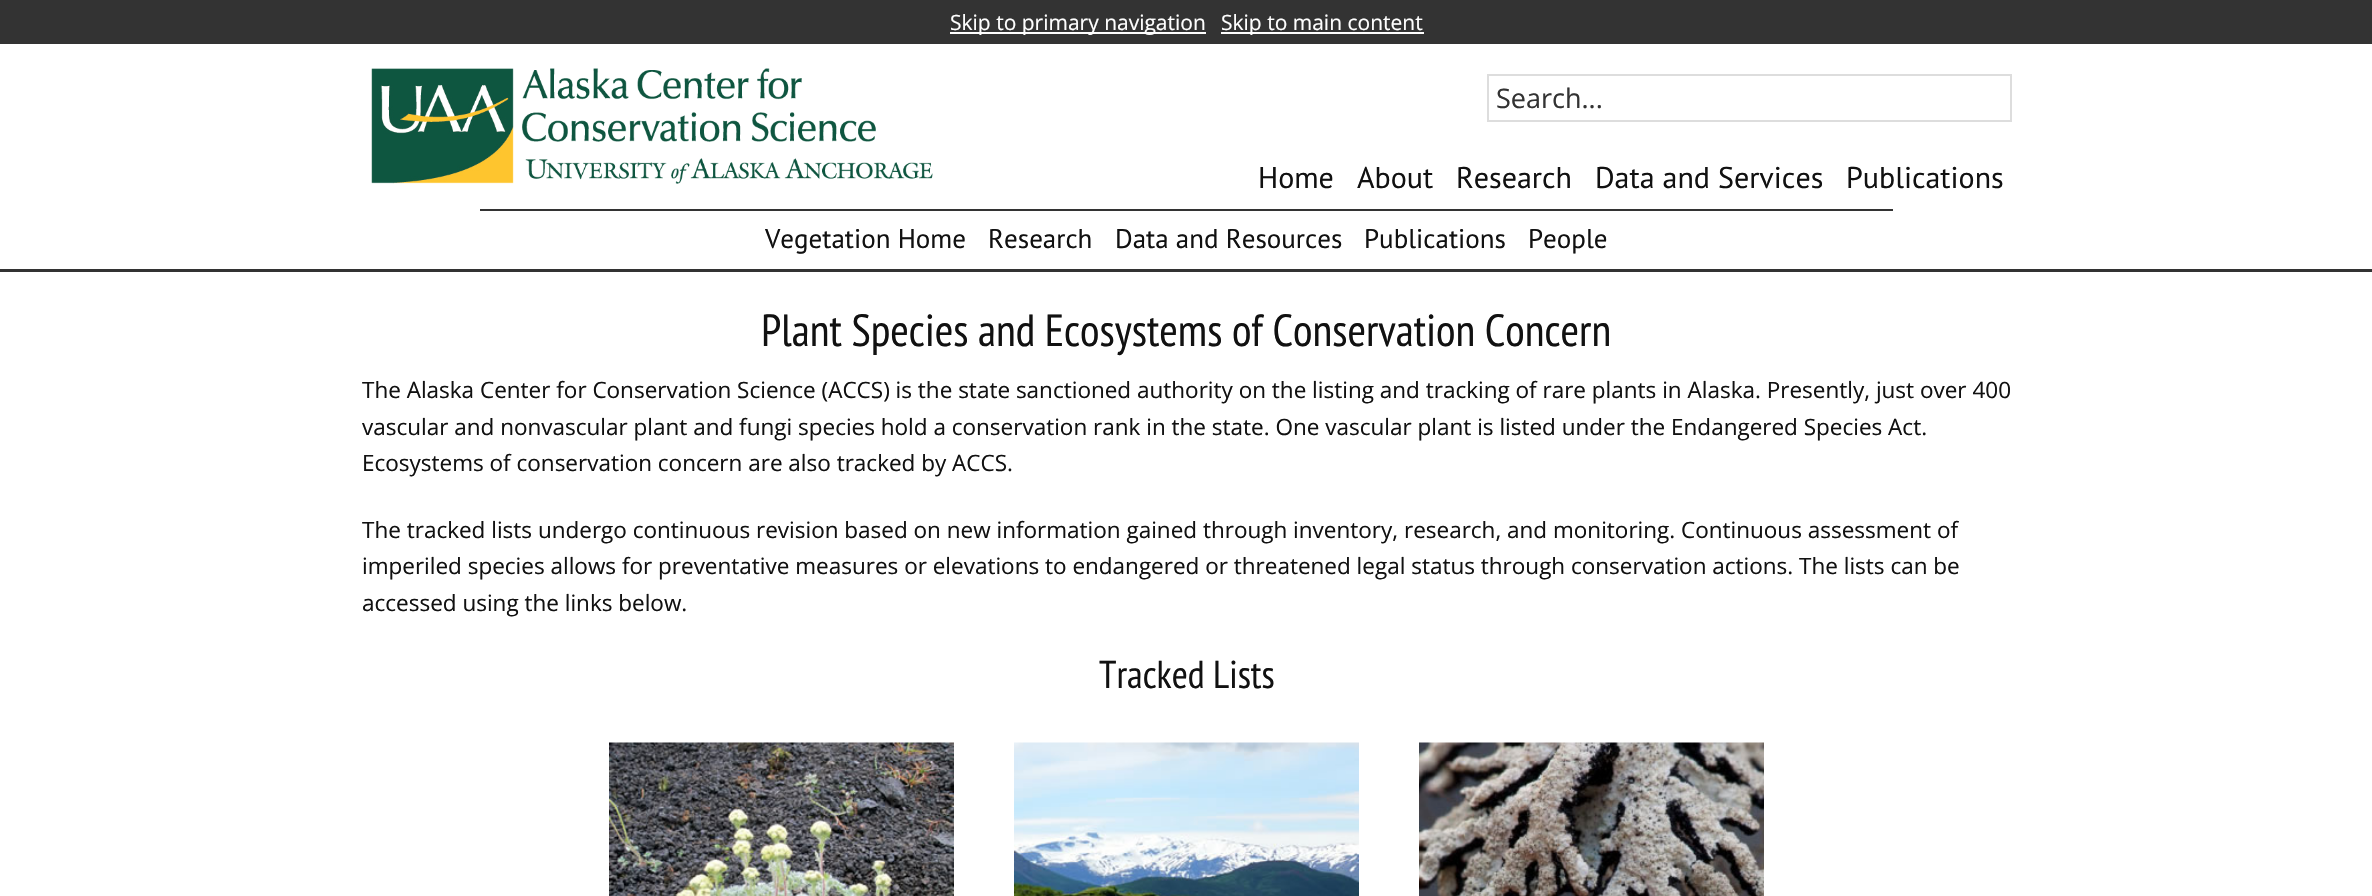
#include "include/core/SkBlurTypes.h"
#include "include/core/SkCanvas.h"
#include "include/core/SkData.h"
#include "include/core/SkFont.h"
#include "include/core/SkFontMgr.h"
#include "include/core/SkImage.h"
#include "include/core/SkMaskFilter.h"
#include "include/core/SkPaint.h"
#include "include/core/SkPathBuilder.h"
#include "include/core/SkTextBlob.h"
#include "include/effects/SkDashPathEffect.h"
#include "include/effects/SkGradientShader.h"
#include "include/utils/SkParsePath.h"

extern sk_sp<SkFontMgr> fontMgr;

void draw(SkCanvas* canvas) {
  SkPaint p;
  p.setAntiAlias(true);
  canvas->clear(SK_ColorWHITE);
  p.setColor(SkColorSetRGB(51, 51, 51));
  canvas->drawRect(SkRect::MakeLTRB(0, 0, 2372, 44), p);
  p.setColor(SK_ColorWHITE);
  canvas->drawRect(SkRect::MakeLTRB(950, 32, 1206, 34), p);
  canvas->drawRect(SkRect::MakeLTRB(1221, 32, 1424, 34), p);
  canvas->drawImageRect(SkImages::DeferredFromEncodedData(SkData::MakeFromFileName("images/1.png")), SkRect::MakeLTRB(371, 68, 933, 184), SkSamplingOptions());
  p.setStyle(SkPaint::kStroke_Style);
  p.setStrokeWidth(2);
  p.setColor(SkColorSetRGB(221, 221, 221));
  canvas->drawRect(SkRect::MakeLTRB(1488, 75, 2011, 121), p);
  p.setStyle(SkPaint::kFill_Style);
  p.setColor(SkColorSetRGB(51, 51, 51));
  canvas->drawRect(SkRect::MakeLTRB(480, 209, 1893, 211), p);
  canvas->drawRect(SkRect::MakeLTRB(0, 269, 2372, 272), p);
  canvas->drawImageRect(SkImages::DeferredFromEncodedData(SkData::MakeFromFileName("images/2.png")), SkRect::MakeLTRB(609, 742, 954, 896), SkSamplingOptions());
  canvas->drawImageRect(SkImages::DeferredFromEncodedData(SkData::MakeFromFileName("images/3.png")), SkRect::MakeLTRB(1014, 742, 1359, 896), SkSamplingOptions());
  canvas->drawImageRect(SkImages::DeferredFromEncodedData(SkData::MakeFromFileName("images/4.png")), SkRect::MakeLTRB(1419, 742, 1764, 896), SkSamplingOptions());
  SkFont font1(fontMgr->matchFamilyStyle("Open Sans", SkFontStyle::Normal()), 21);
  font1.setSubpixel(true);
  p.setColor(SK_ColorWHITE);
  canvas->drawString("Skip to primary navigation", 950, 30, font1, p);
  canvas->drawString("Skip to main content", 1221, 30, font1, p);
  SkFont font2(fontMgr->matchFamilyStyle("Open Sans", SkFontStyle::Normal()), 27);
  font2.setSubpixel(true);
  p.setColor(SkColorSetRGB(51, 51, 51));
  canvas->drawString("Search...", 1496, 108, font2, p);
  SkFont font3(fontMgr->matchFamilyStyle("PT Sans", SkFontStyle::Normal()), 30);
  font3.setSubpixel(true);
  p.setColor(SkColorSetRGB(17, 17, 17));
  canvas->drawString("Home", 1258, 188, font3, p);
  canvas->drawString("About", 1357, 188, font3, p);
  canvas->drawString("Research", 1456, 188, font3, p);
  canvas->drawString("Data and Services", 1595, 188, font3, p);
  canvas->drawString("Publications", 1846, 188, font3, p);
  SkFont font4(fontMgr->matchFamilyStyle("PT Sans", SkFontStyle::Normal()), 27);
  font4.setSubpixel(true);
  canvas->drawString("Vegetation Home", 765, 248, font4, p);
  canvas->drawString("Research", 988, 248, font4, p);
  canvas->drawString("Data and Resources", 1115, 248, font4, p);
  canvas->drawString("Publications", 1364, 248, font4, p);
  canvas->drawString("People", 1528, 248, font4, p);
  SkFont font5(fontMgr->matchFamilyStyle("PT Sans Narrow", SkFontStyle::Normal()), 45);
  font5.setSubpixel(true);
  canvas->drawString("Plant Species and Ecosystems of Conservation Concern", 761, 346, font5, p);
  SkFont font6(fontMgr->matchFamilyStyle("Open Sans", SkFontStyle::Normal()), 22.5f);
  font6.setSubpixel(true);
  canvas->drawString("The Alaska Center for Conservation Science (ACCS) is the state sanctioned authority on the listing and tracking of rare plants in Alaska. Presently, just over 400", 362, 398, font6, p);
  canvas->drawString("vascular and nonvascular plant and fungi species hold a conservation rank in the state. One vascular plant is listed under the Endangered Species Act.", 362, 435, font6, p);
  canvas->drawString("Ecosystems of conservation concern are also tracked by ACCS.", 362, 471, font6, p);
  canvas->drawString("The tracked lists undergo continuous revision based on new information gained through inventory, research, and monitoring. Continuous assessment of", 362, 538, font6, p);
  canvas->drawString("imperiled species allows for preventative measures or elevations to endangered or threatened legal status through conservation actions. The lists can be", 362, 574, font6, p);
  canvas->drawString("accessed using the links below.", 362, 611, font6, p);
  SkFont font7(fontMgr->matchFamilyStyle("PT Sans Narrow", SkFontStyle::Normal()), 39);
  font7.setSubpixel(true);
  canvas->drawString("Tracked Lists", 1099, 688, font7, p);
}
